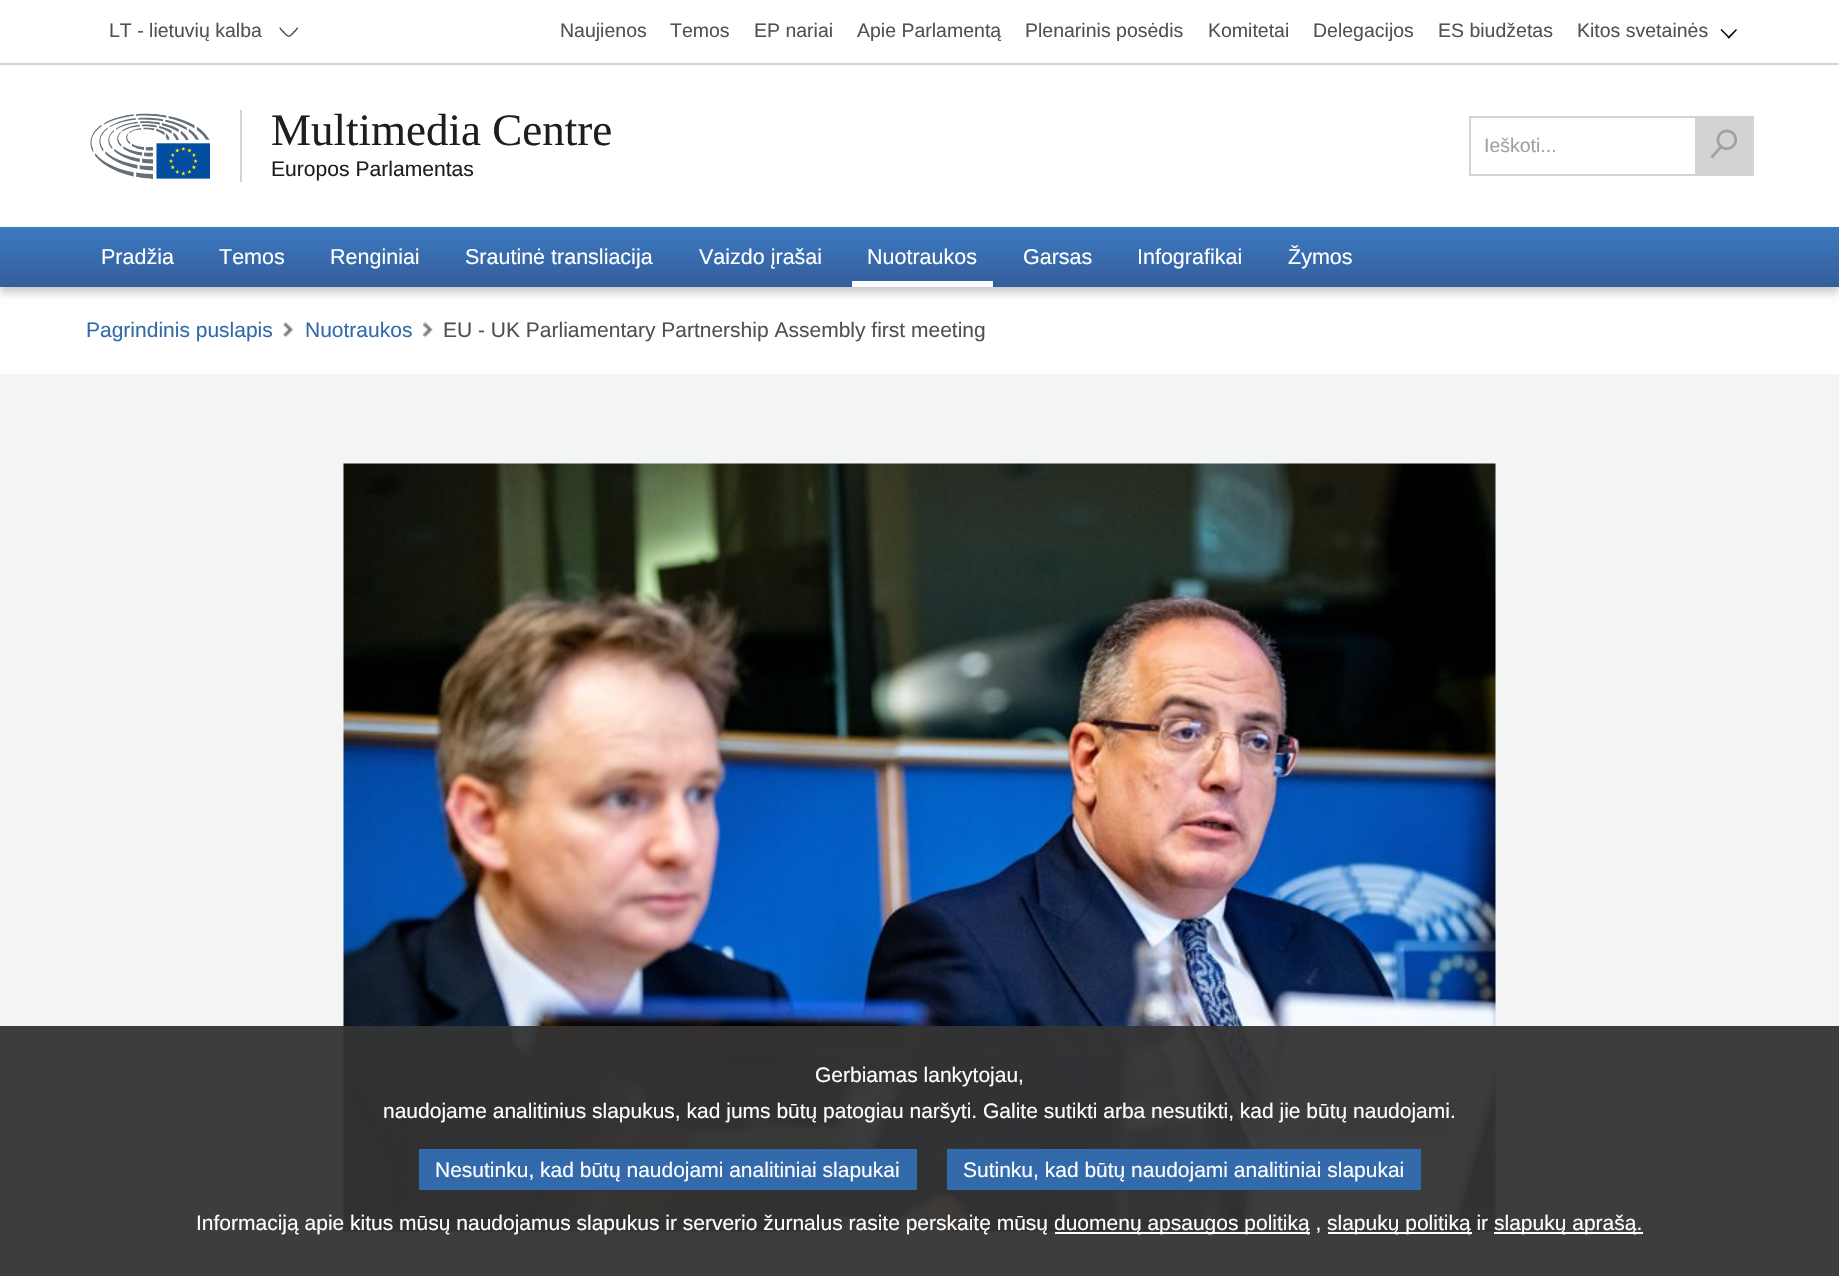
#include "include/core/SkBlurTypes.h"
#include "include/core/SkCanvas.h"
#include "include/core/SkData.h"
#include "include/core/SkFont.h"
#include "include/core/SkFontMgr.h"
#include "include/core/SkImage.h"
#include "include/core/SkMaskFilter.h"
#include "include/core/SkPaint.h"
#include "include/core/SkPathBuilder.h"
#include "include/core/SkTextBlob.h"
#include "include/effects/SkDashPathEffect.h"
#include "include/effects/SkGradientShader.h"
#include "include/utils/SkParsePath.h"

extern sk_sp<SkFontMgr> fontMgr;

void draw(SkCanvas* canvas) {
  SkPaint p;
  p.setAntiAlias(true);
  canvas->clear(SK_ColorWHITE);
  p.setColor(SkColorSetRGB(209, 211, 212));
  canvas->drawRect(SkRect::MakeLTRB(0, 63, 1839, 65), p);
  p.setStyle(SkPaint::kStroke_Style);
  p.setStrokeWidth(1.5f);
  p.setColor(SkColorSetRGB(80, 81, 84));
  canvas->drawPath(SkPathBuilder().moveTo(297.5f, 27.5f).cubicTo(297.5f, 29.5f, 294.5f, 31, 293.5f, 32.5f).cubicTo(288.5f, 37.5f, 289, 37.5f, 284, 32.5f).cubicTo(283, 31, 280, 29.5f, 280, 27.5f).detach(), p);
  p.setStyle(SkPaint::kFill_Style);
  p.setColor(SK_ColorBLACK);
  canvas->drawPath(SkPathBuilder().moveTo(1736, 29).lineTo(1737, 30).lineTo(1729, 38.5f).lineTo(1727.5f, 37.5f).close().detach(), p);
  canvas->drawPath(SkPathBuilder().moveTo(1721.5f, 29).lineTo(1730, 37.5f).lineTo(1729, 38.5f).lineTo(1720.5f, 30).close().detach(), p);
  canvas->drawImageRect(SkImages::DeferredFromEncodedData(SkData::MakeFromFileName("images/1.png")), SkRect::MakeLTRB(90, 113, 210, 179), SkSamplingOptions());
  p.setColor(SkColorSetRGB(209, 211, 212));
  canvas->drawRect(SkRect::MakeLTRB(240, 110, 242, 182), p);
  p.setStyle(SkPaint::kStroke_Style);
  p.setStrokeWidth(2);
  canvas->drawRect(SkRect::MakeLTRB(1470, 117, 1753, 175), p);
  p.setStyle(SkPaint::kFill_Style);
  canvas->drawRect(SkRect::MakeLTRB(1695, 118, 1752, 174), p);
  canvas->drawImageRect(SkImages::DeferredFromEncodedData(SkData::MakeFromFileName("images/2.png")), SkRect::MakeLTRB(1710, 129, 1737, 159), SkSamplingOptions());
  p.setColor(SkColorSetARGB(51, 0, 0, 0));
  p.setMaskFilter(SkMaskFilter::MakeBlur(kNormal_SkBlurStyle, 4));
  canvas->drawRect(SkRect::MakeLTRB(0, 233, 1839, 293), p);
  p.setMaskFilter(nullptr);
  {
    const SkColor colors[] = {SkColorSetRGB(61, 122, 193), SkColorSetRGB(52, 94, 156)};
    const float stops[] = {0, 1};
    const SkPoint ends[] = {{920, 226}, {920, 287}};
    p.setShader(SkGradientShader::MakeLinear(ends, colors, stops, 2, SkTileMode::kClamp));
    p.setAlpha(255);
  }
  canvas->drawRect(SkRect::MakeLTRB(0, 227, 1839, 287), p);
  p.setShader(nullptr);
  p.setColor(SK_ColorWHITE);
  canvas->drawRect(SkRect::MakeLTRB(852, 281, 993, 287), p);
  canvas->drawImageRect(SkImages::DeferredFromEncodedData(SkData::MakeFromFileName("images/3.png")), SkRect::MakeLTRB(283, 322, 293, 338), SkSamplingOptions());
  canvas->drawImageRect(SkImages::DeferredFromEncodedData(SkData::MakeFromFileName("images/4.png")), SkRect::MakeLTRB(423, 322, 433, 338), SkSamplingOptions());
  p.setColor(SkColorSetRGB(243, 244, 244));
  canvas->drawRect(SkRect::MakeLTRB(0, 374, 1839, 1276), p);
  canvas->drawImageRect(SkImages::DeferredFromEncodedData(SkData::MakeFromFileName("images/5.png")), SkRect::MakeLTRB(343, 463, 1496, 1232), SkSamplingOptions());
  p.setColor(SkColorSetARGB(242, 51, 51, 51));
  canvas->drawRect(SkRect::MakeLTRB(0, 1026, 1839, 1276), p);
  p.setColor(SkColorSetRGB(50, 106, 171));
  canvas->drawRect(SkRect::MakeLTRB(419, 1149, 917, 1190), p);
  canvas->drawRect(SkRect::MakeLTRB(947, 1149, 1421, 1190), p);
  p.setColor(SK_ColorWHITE);
  canvas->drawRect(SkRect::MakeLTRB(1055, 1232, 1310, 1234), p);
  canvas->drawRect(SkRect::MakeLTRB(1328, 1232, 1472, 1234), p);
  canvas->drawRect(SkRect::MakeLTRB(1494, 1232, 1643, 1234), p);
  SkFont font1(fontMgr->matchFamilyStyle("Liberation Sans", SkFontStyle::Normal()), 19.5f);
  font1.setSubpixel(true);
  p.setColor(SkColorSetRGB(80, 81, 84));
  canvas->drawString("LT - lietuvių kalba", 109, 37, font1, p);
  canvas->drawString("Naujienos", 560, 37, font1, p);
  canvas->drawString("Temos", 670, 37, font1, p);
  canvas->drawString("EP nariai", 754, 37, font1, p);
  canvas->drawString("Apie Parlamentą", 857, 37, font1, p);
  canvas->drawString("Plenarinis posėdis", 1025, 37, font1, p);
  canvas->drawString("Komitetai", 1208, 37, font1, p);
  canvas->drawString("Delegacijos", 1313, 37, font1, p);
  canvas->drawString("ES biudžetas", 1438, 37, font1, p);
  canvas->drawString("Kitos svetainės", 1577, 37, font1, p);
  SkFont font2(fontMgr->matchFamilyStyle("Liberation Serif", SkFontStyle::Normal()), 45);
  font2.setSubpixel(true);
  p.setColor(SkColorSetRGB(30, 30, 31));
  canvas->drawString("Multimedia Centre", 271, 145, font2, p);
  SkFont font3(fontMgr->matchFamilyStyle("Liberation Sans", SkFontStyle::Normal()), 21.1f);
  font3.setSubpixel(true);
  canvas->drawString("Europos Parlamentas", 271, 176, font3, p);
  p.setColor(SkColorSetRGB(162, 161, 162));
  canvas->drawString("Ieškoti...", 1484, 152, font1, p);
  SkFont font4(fontMgr->matchFamilyStyle("Liberation Sans", SkFontStyle::Normal()), 21.5f);
  font4.setSubpixel(true);
  p.setColor(SK_ColorWHITE);
  canvas->drawString("Pradžia", 101, 264, font4, p);
  canvas->drawString("Temos", 219, 264, font4, p);
  canvas->drawString("Renginiai", 330, 264, font4, p);
  canvas->drawString("Srautinė transliacija", 465, 264, font4, p);
  canvas->drawString("Vaizdo įrašai", 699, 264, font4, p);
  canvas->drawString("Nuotraukos", 867, 264, font4, p);
  canvas->drawString("Garsas", 1023, 264, font4, p);
  canvas->drawString("Infografikai", 1137, 264, font4, p);
  canvas->drawString("Žymos", 1288, 264, font4, p);
  SkFont font5(fontMgr->matchFamilyStyle("Liberation Sans", SkFontStyle::Normal()), 21);
  font5.setSubpixel(true);
  p.setColor(SkColorSetRGB(50, 106, 171));
  canvas->drawString("Pagrindinis puslapis", 86, 337, font5, p);
  canvas->drawString("Nuotraukos", 305, 337, font5, p);
  p.setColor(SkColorSetRGB(80, 81, 84));
  canvas->drawString("EU - UK Parliamentary Partnership Assembly first meeting", 443, 337, font5, p);
  p.setColor(SK_ColorWHITE);
  canvas->drawString("Gerbiamas lankytojau,", 815, 1082, font5, p);
  canvas->drawString("naudojame analitinius slapukus, kad jums būtų patogiau naršyti. Galite sutikti arba nesutikti, kad jie būtų naudojami.", 383, 1118, font5, p);
  canvas->drawString("Nesutinku, kad būtų naudojami analitiniai slapukai", 435, 1177, font5, p);
  canvas->drawString("Sutinku, kad būtų naudojami analitiniai slapukai", 963, 1177, font5, p);
  canvas->drawString("Informaciją apie kitus mūsų naudojamus slapukus ir serverio žurnalus rasite perskaitę mūsų", 196, 1230, font5, p);
  canvas->drawString("duomenų apsaugos politiką ,", 1054, 1230, font5, p);
  canvas->drawString("slapukų politiką ir", 1327, 1230, font5, p);
  canvas->drawString("slapukų aprašą.", 1494, 1230, font5, p);
}
